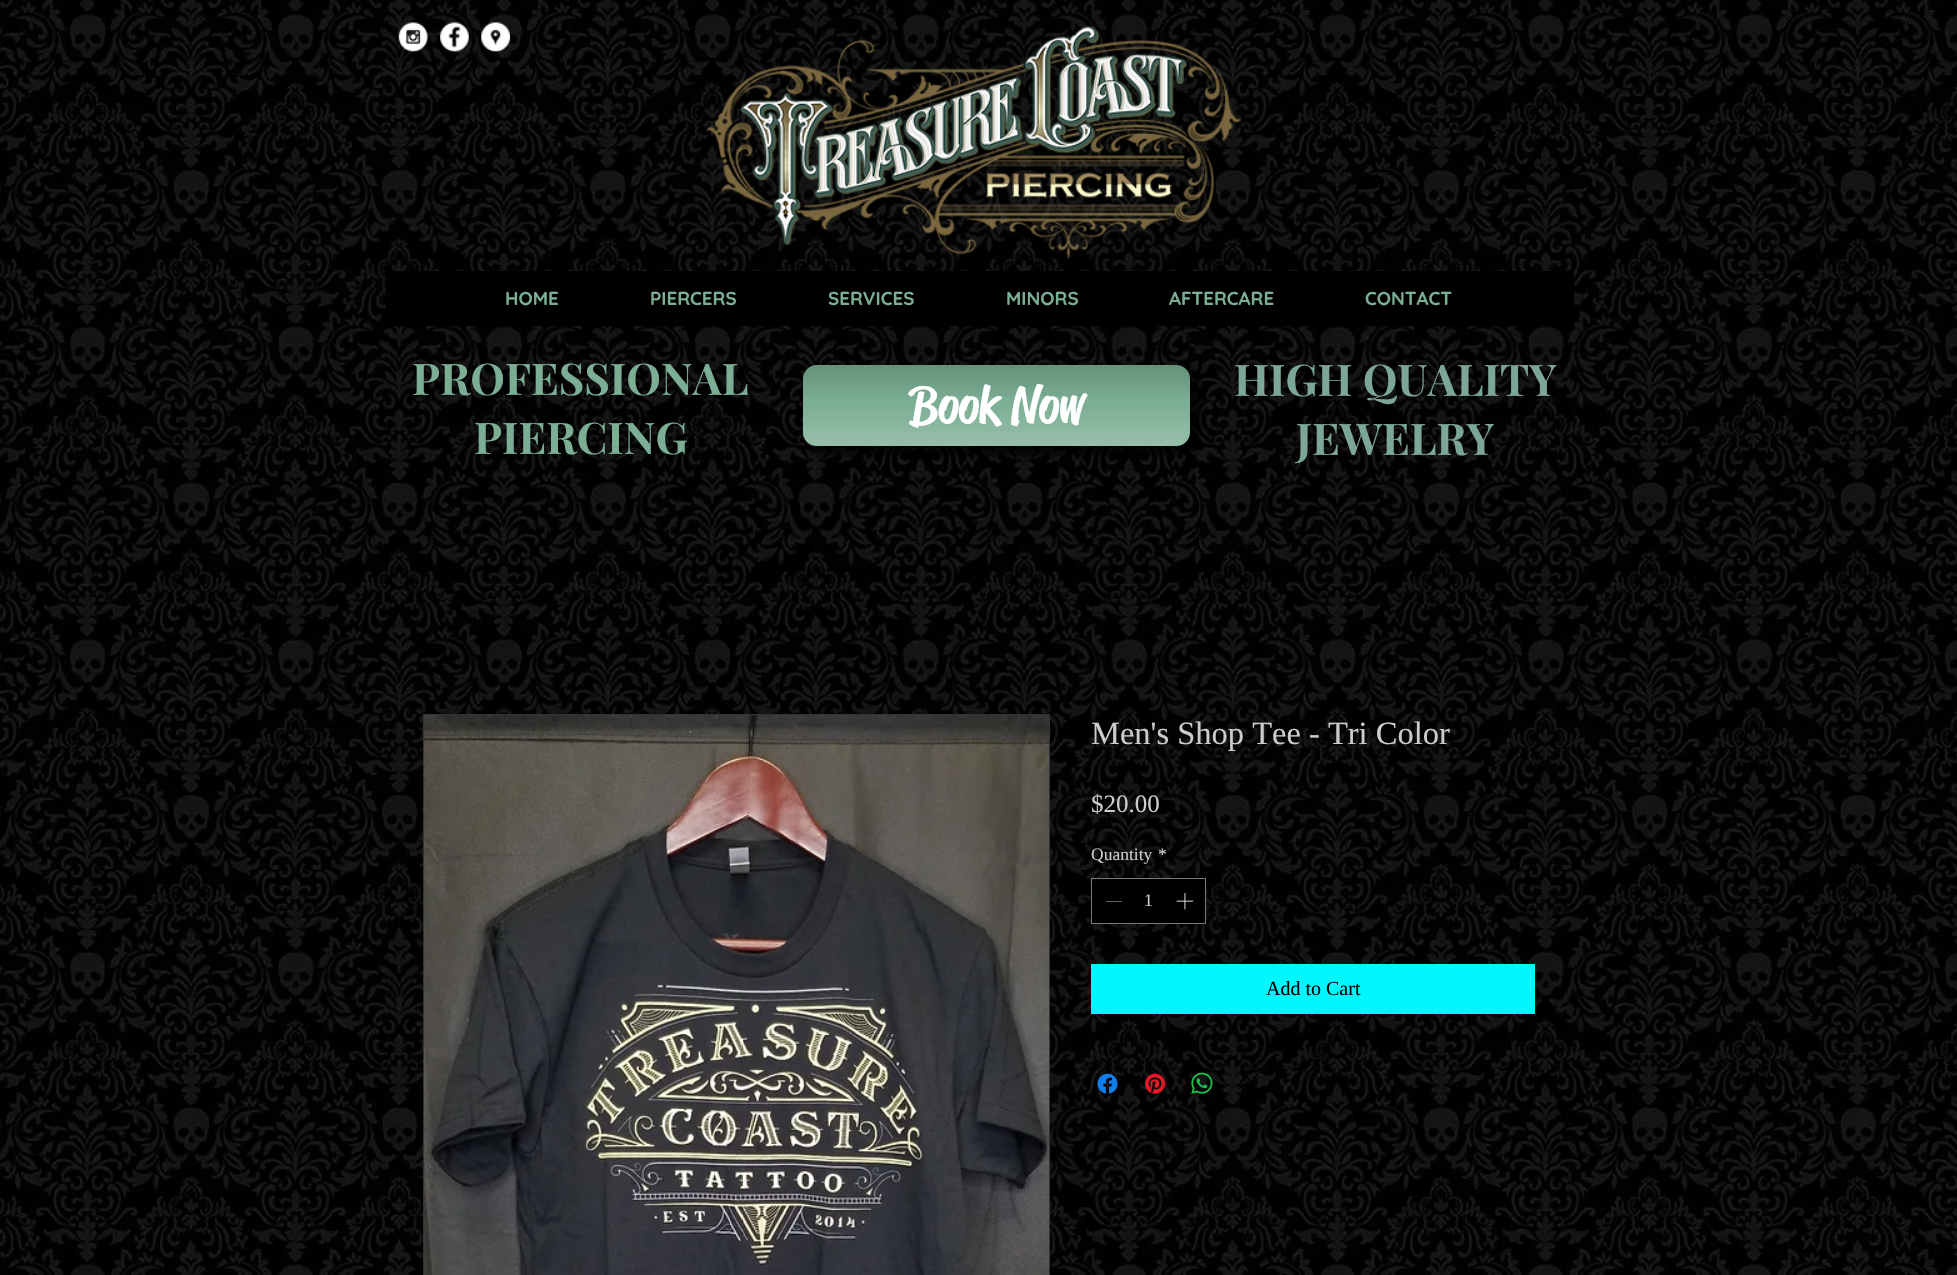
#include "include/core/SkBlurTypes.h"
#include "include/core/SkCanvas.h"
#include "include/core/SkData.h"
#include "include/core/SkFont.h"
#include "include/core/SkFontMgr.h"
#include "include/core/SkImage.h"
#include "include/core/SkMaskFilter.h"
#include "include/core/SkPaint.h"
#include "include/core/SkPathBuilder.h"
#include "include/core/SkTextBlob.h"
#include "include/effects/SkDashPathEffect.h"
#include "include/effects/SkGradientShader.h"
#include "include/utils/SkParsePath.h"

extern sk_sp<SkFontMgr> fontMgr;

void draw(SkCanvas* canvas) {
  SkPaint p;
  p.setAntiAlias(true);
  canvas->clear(SK_ColorWHITE);
  canvas->drawImageRect(SkImages::DeferredFromEncodedData(SkData::MakeFromFileName("images/1.png")), SkRect::MakeLTRB(0, 0, 1957, 1275), SkSamplingOptions());
  canvas->drawImageRect(SkImages::DeferredFromEncodedData(SkData::MakeFromFileName("images/2.png")), SkRect::MakeLTRB(398, 22, 428, 52), SkSamplingOptions());
  canvas->drawImageRect(SkImages::DeferredFromEncodedData(SkData::MakeFromFileName("images/3.png")), SkRect::MakeLTRB(440, 22, 469, 52), SkSamplingOptions());
  canvas->drawImageRect(SkImages::DeferredFromEncodedData(SkData::MakeFromFileName("images/4.png")), SkRect::MakeLTRB(481, 22, 510, 52), SkSamplingOptions());
  canvas->drawImageRect(SkImages::DeferredFromEncodedData(SkData::MakeFromFileName("images/5.png")), SkRect::MakeLTRB(706, 25, 1242, 259), SkSamplingOptions());
  p.setColor(SK_ColorBLACK);
  canvas->drawRect(SkRect::MakeLTRB(386, 271, 1574, 326), p);
  p.setColor(SkColorSetARGB(163, 0, 0, 0));
  p.setMaskFilter(SkMaskFilter::MakeBlur(kNormal_SkBlurStyle, 2.5f));
  canvas->drawRoundRect(SkRect::MakeLTRB(804, 365, 1201, 456), 19, 19, p);
  p.setMaskFilter(nullptr);
  p.setColor(SkColorSetRGB(123, 174, 148));
  canvas->drawRoundRect(SkRect::MakeLTRB(803, 365, 1190, 446), 14, 14, p);
  canvas->drawImageRect(SkImages::DeferredFromEncodedData(SkData::MakeFromFileName("images/6.png")), SkRect::MakeLTRB(803, 365, 1190, 397), SkSamplingOptions());
  canvas->drawImageRect(SkImages::DeferredFromEncodedData(SkData::MakeFromFileName("images/7.png")), SkRect::MakeLTRB(802, 408, 1190, 446), SkSamplingOptions());
  p.setStyle(SkPaint::kStroke_Style);
  p.setStrokeWidth(1);
  p.setColor(SkColorSetRGB(51, 51, 51));
  canvas->drawRect(SkRect::MakeLTRB(423.5f, 714.5f, 1049.5f, 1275.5f), p);
  canvas->drawImageRect(SkImages::DeferredFromEncodedData(SkData::MakeFromFileName("images/8.png")), SkRect::MakeLTRB(424, 715, 1049, 1275), SkSamplingOptions());
  p.setStyle(SkPaint::kFill_Style);
  p.setColor(SK_ColorBLACK);
  canvas->drawRect(SkRect::MakeLTRB(1091.5f, 878.5f, 1205.5f, 923.5f), p);
  p.setStyle(SkPaint::kStroke_Style);
  p.setColor(SkColorSetRGB(122, 122, 122));
  canvas->drawRect(SkRect::MakeLTRB(1091.5f, 878.5f, 1205.5f, 923.5f), p);
  p.setStyle(SkPaint::kFill_Style);
  p.setColor(SkColorSetRGB(100, 100, 100));
  canvas->drawRect(SkRect::MakeLTRB(1106, 901, 1122, 902), p);
  canvas->drawImageRect(SkImages::DeferredFromEncodedData(SkData::MakeFromFileName("images/9.png")), SkRect::MakeLTRB(1176, 893, 1194, 910), SkSamplingOptions());
  p.setColor(SkColorSetRGB(0, 248, 252));
  canvas->drawRect(SkRect::MakeLTRB(1091, 964, 1535, 1014), p);
  canvas->drawImageRect(SkImages::DeferredFromEncodedData(SkData::MakeFromFileName("images/10.png")), SkRect::MakeLTRB(1097, 1073, 1118, 1094), SkSamplingOptions());
  canvas->drawImageRect(SkImages::DeferredFromEncodedData(SkData::MakeFromFileName("images/11.png")), SkRect::MakeLTRB(1145, 1073, 1165, 1094), SkSamplingOptions());
  canvas->drawImageRect(SkImages::DeferredFromEncodedData(SkData::MakeFromFileName("images/12.png")), SkRect::MakeLTRB(1191, 1072, 1213, 1094), SkSamplingOptions());
  canvas->drawImageRect(SkImages::DeferredFromEncodedData(SkData::MakeFromFileName("images/13.png")), SkRect::MakeLTRB(1240, 1073, 1259, 1093), SkSamplingOptions());
  SkFont font1(fontMgr->matchFamilyStyle("Quicksand", SkFontStyle::Bold()), 18.75f);
  font1.setSubpixel(true);
  p.setColor(SkColorSetRGB(123, 174, 148));
  canvas->drawString("HOME", 505, 305, font1, p);
  canvas->drawString("PIERCERS", 650, 305, font1, p);
  canvas->drawString("SERVICES", 828, 305, font1, p);
  canvas->drawString("MINORS", 1006, 305, font1, p);
  canvas->drawString("AFTERCARE", 1169, 305, font1, p);
  canvas->drawString("CONTACT", 1365, 305, font1, p);
  SkFont font2(fontMgr->matchFamilyStyle("Playfair Display", SkFontStyle::Bold()), 43.75f);
  font2.setSubpixel(true);
  canvas->drawString("PROFESSIONAL", 412, 395, font2, p);
  canvas->drawString("PIERCING", 474, 454, font2, p);
  SkFont font3(fontMgr->matchFamilyStyle("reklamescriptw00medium", SkFontStyle(500, SkFontStyle::kNormal_Width, SkFontStyle::kUpright_Slant)), 50);
  font3.setSubpixel(true);
  p.setColor(SK_ColorWHITE);
  canvas->drawString("Book Now", 909, 422, font3, p);
  p.setColor(SkColorSetRGB(124, 166, 151));
  canvas->drawString("HIGH QUALITY", 1234, 396, font2, p);
  canvas->drawString("JEWELRY", 1296, 455, font2, p);
  SkFont font4(fontMgr->matchFamilyStyle("Liberation Serif", SkFontStyle::Normal()), 32.5f);
  font4.setSubpixel(true);
  p.setColor(SkColorSetRGB(204, 204, 204));
  canvas->drawString("Men's Shop Tee - Tri Color", 1091, 744, font4, p);
  SkFont font5(fontMgr->matchFamilyStyle("Liberation Serif", SkFontStyle::Normal()), 25);
  font5.setSubpixel(true);
  canvas->drawString("$20.00", 1091, 812, font5, p);
  SkFont font6(fontMgr->matchFamilyStyle("Liberation Serif", SkFontStyle::Normal()), 17.5f);
  font6.setSubpixel(true);
  canvas->drawString("Quantity", 1091, 860, font6, p);
  canvas->drawString("*", 1158, 860, font6, p);
  canvas->drawString("1", 1144, 906, font6, p);
  SkFont font7(fontMgr->matchFamilyStyle("Liberation Serif", SkFontStyle::Normal()), 20);
  font7.setSubpixel(true);
  p.setColor(SK_ColorBLACK);
  canvas->drawString("Add to Cart", 1266, 995, font7, p);
}
